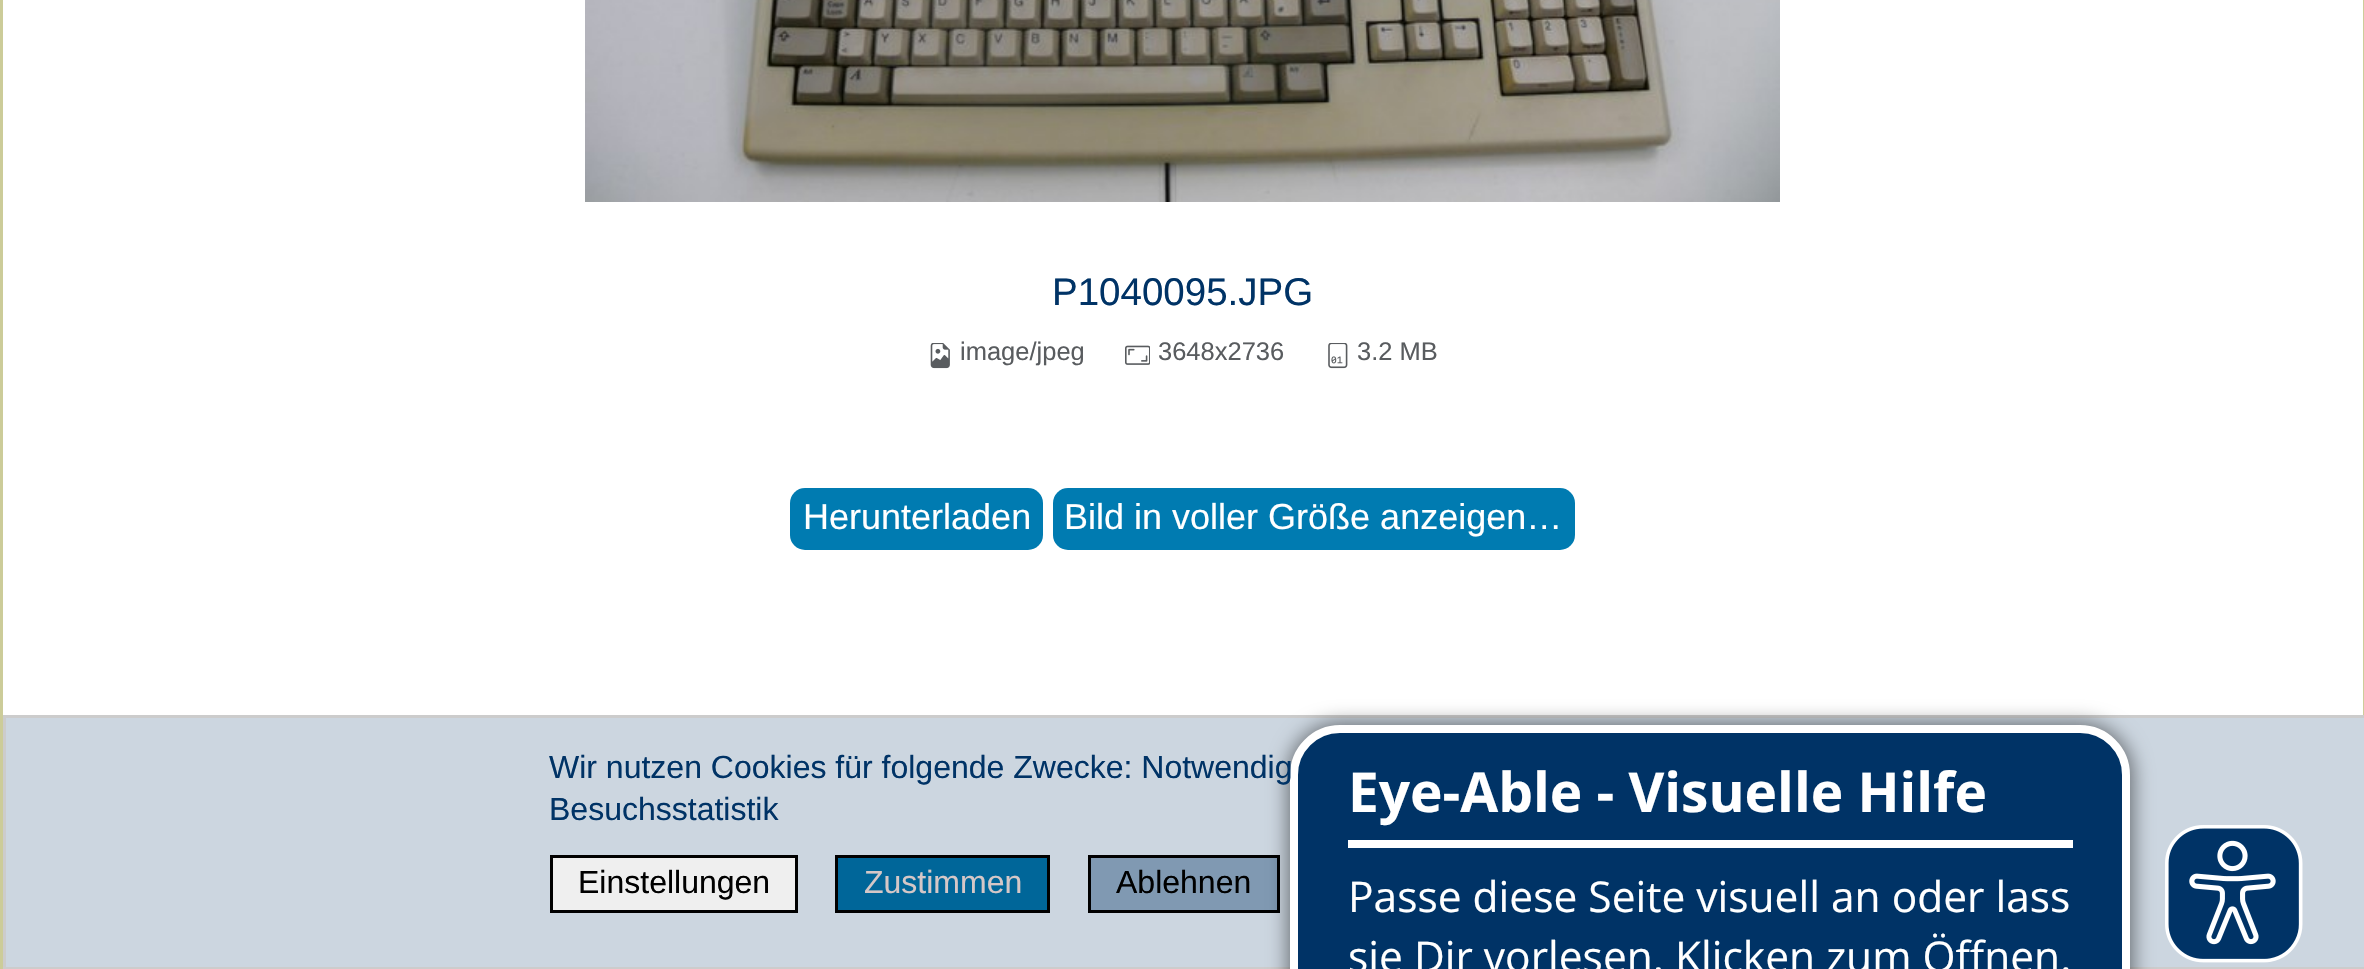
#include "include/core/SkBlurTypes.h"
#include "include/core/SkCanvas.h"
#include "include/core/SkData.h"
#include "include/core/SkFont.h"
#include "include/core/SkFontMgr.h"
#include "include/core/SkImage.h"
#include "include/core/SkMaskFilter.h"
#include "include/core/SkPaint.h"
#include "include/core/SkPathBuilder.h"
#include "include/core/SkTextBlob.h"
#include "include/effects/SkDashPathEffect.h"
#include "include/effects/SkGradientShader.h"
#include "include/utils/SkParsePath.h"

extern sk_sp<SkFontMgr> fontMgr;

void draw(SkCanvas* canvas) {
  SkPaint p;
  p.setAntiAlias(true);
  canvas->clear(SK_ColorWHITE);
  p.setColor(SkColorSetRGB(204, 204, 153));
  canvas->drawRect(SkRect::MakeLTRB(2363, 0, 2364, 715), p);
  canvas->drawRect(SkRect::MakeLTRB(0, 0, 3, 969), p);
  canvas->drawImageRect(SkImages::DeferredFromEncodedData(SkData::MakeFromFileName("images/1.png")), SkRect::MakeLTRB(585, 0, 1780, 202), SkSamplingOptions());
  canvas->drawImageRect(SkImages::DeferredFromEncodedData(SkData::MakeFromFileName("images/2.png")), SkRect::MakeLTRB(930, 343, 950, 369), SkSamplingOptions());
  canvas->drawImageRect(SkImages::DeferredFromEncodedData(SkData::MakeFromFileName("images/3.png")), SkRect::MakeLTRB(1125, 345, 1150, 365), SkSamplingOptions());
  canvas->drawImageRect(SkImages::DeferredFromEncodedData(SkData::MakeFromFileName("images/4.png")), SkRect::MakeLTRB(1328, 343, 1348, 369), SkSamplingOptions());
  p.setColor(SkColorSetRGB(0, 123, 177));
  canvas->drawRoundRect(SkRect::MakeLTRB(790, 488, 1043, 550), 15, 15, p);
  canvas->drawRoundRect(SkRect::MakeLTRB(1053, 488, 1575, 550), 15, 15, p);
  p.setColor(SkColorSetRGB(204, 214, 224));
  canvas->drawRect(SkRect::MakeLTRB(4.5f, 716.5f, 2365.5f, 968.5f), p);
  p.setStyle(SkPaint::kStroke_Style);
  p.setStrokeWidth(3);
  p.setColor(SkColorSetRGB(204, 204, 204));
  canvas->drawRect(SkRect::MakeLTRB(4.5f, 716.5f, 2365.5f, 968.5f), p);
  p.setStyle(SkPaint::kFill_Style);
  p.setColor(SkColorSetRGB(239, 239, 239));
  canvas->drawRect(SkRect::MakeLTRB(551.5f, 856.5f, 796.5f, 911.5f), p);
  p.setStyle(SkPaint::kStroke_Style);
  p.setColor(SK_ColorBLACK);
  canvas->drawRect(SkRect::MakeLTRB(551.5f, 856.5f, 796.5f, 911.5f), p);
  p.setStyle(SkPaint::kFill_Style);
  p.setColor(SkColorSetRGB(0, 102, 153));
  canvas->drawRect(SkRect::MakeLTRB(836.5f, 856.5f, 1048.5f, 911.5f), p);
  p.setStyle(SkPaint::kStroke_Style);
  p.setColor(SK_ColorBLACK);
  canvas->drawRect(SkRect::MakeLTRB(836.5f, 856.5f, 1048.5f, 911.5f), p);
  p.setStyle(SkPaint::kFill_Style);
  p.setColor(SkColorSetRGB(128, 153, 178));
  canvas->drawRect(SkRect::MakeLTRB(1089.5f, 856.5f, 1278.5f, 911.5f), p);
  p.setStyle(SkPaint::kStroke_Style);
  p.setColor(SK_ColorBLACK);
  canvas->drawRect(SkRect::MakeLTRB(1089.5f, 856.5f, 1278.5f, 911.5f), p);
  p.setStyle(SkPaint::kFill_Style);
  p.setColor(SkColorSetARGB(128, 0, 0, 0));
  p.setMaskFilter(SkMaskFilter::MakeBlur(kNormal_SkBlurStyle, 10));
  canvas->drawRoundRect(SkRect::MakeLTRB(1288, 723, 2133, 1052), 53, 53, p);
  p.setMaskFilter(nullptr);
  p.setColor(SkColorSetRGB(0, 51, 102));
  canvas->drawRoundRect(SkRect::MakeLTRB(1294, 729, 2126, 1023), 46, 46, p);
  p.setStyle(SkPaint::kStroke_Style);
  p.setStrokeWidth(8);
  p.setColor(SK_ColorWHITE);
  canvas->drawRoundRect(SkRect::MakeLTRB(1294, 729, 2126, 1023), 46, 46, p);
  p.setStyle(SkPaint::kFill_Style);
  canvas->drawRect(SkRect::MakeLTRB(1348, 840, 2073, 848), p);
  canvas->drawImageRect(SkImages::DeferredFromEncodedData(SkData::MakeFromFileName("images/5.png")), SkRect::MakeLTRB(2165, 825, 2303, 963), SkSamplingOptions());
  SkFont font1(fontMgr->matchFamilyStyle("Liberation Sans", SkFontStyle::Normal()), 38.5f);
  font1.setSubpixel(true);
  p.setColor(SkColorSetRGB(0, 51, 102));
  canvas->drawString("P1040095.JPG", 1052, 305, font1, p);
  SkFont font2(fontMgr->matchFamilyStyle("Liberation Sans", SkFontStyle::Normal()), 25.5f);
  font2.setSubpixel(true);
  p.setColor(SkColorSetRGB(89, 92, 95));
  canvas->drawString("image/jpeg", 960, 360, font2, p);
  canvas->drawString("3648x2736", 1158, 360, font2, p);
  canvas->drawString("3.2 MB", 1357, 360, font2, p);
  SkFont font3(fontMgr->matchFamilyStyle("Liberation Sans", SkFontStyle::Normal()), 36);
  font3.setSubpixel(true);
  p.setColor(SK_ColorWHITE);
  canvas->drawString("Herunterladen", 803, 529, font3, p);
  canvas->drawString("Bild in voller Größe anzeigen…", 1064, 529, font3, p);
  SkFont font4(fontMgr->matchFamilyStyle("Liberation Sans", SkFontStyle::Normal()), 32);
  font4.setSubpixel(true);
  p.setColor(SkColorSetRGB(0, 51, 102));
  canvas->drawString("Wir nutzen Cookies für folgende Zwecke: Notwendig", 549, 778, font4, p);
  canvas->drawString("Besuchsstatistik", 549, 820, font4, p);
  p.setColor(SK_ColorBLACK);
  canvas->drawString("Einstellungen", 578, 893, font4, p);
  p.setColor(SkColorSetRGB(213, 199, 199));
  canvas->drawString("Zustimmen", 864, 893, font4, p);
  p.setColor(SK_ColorBLACK);
  canvas->drawString("Ablehnen", 1116, 893, font4, p);
  SkFont font5(fontMgr->matchFamilyStyle("Open Sans", SkFontStyle::Bold()), 55);
  font5.setSubpixel(true);
  p.setColor(SK_ColorWHITE);
  canvas->drawString("Eye-Able - Visuelle Hilfe", 1348, 812, font5, p);
  SkFont font6(fontMgr->matchFamilyStyle("Open Sans", SkFontStyle::Normal()), 42.5f);
  font6.setSubpixel(true);
  canvas->drawString("Passe diese Seite visuell an oder lass", 1348, 912, font6, p);
  canvas->drawString("sie Dir vorlesen. Klicken zum Öffnen.", 1348, 972, font6, p);
}
